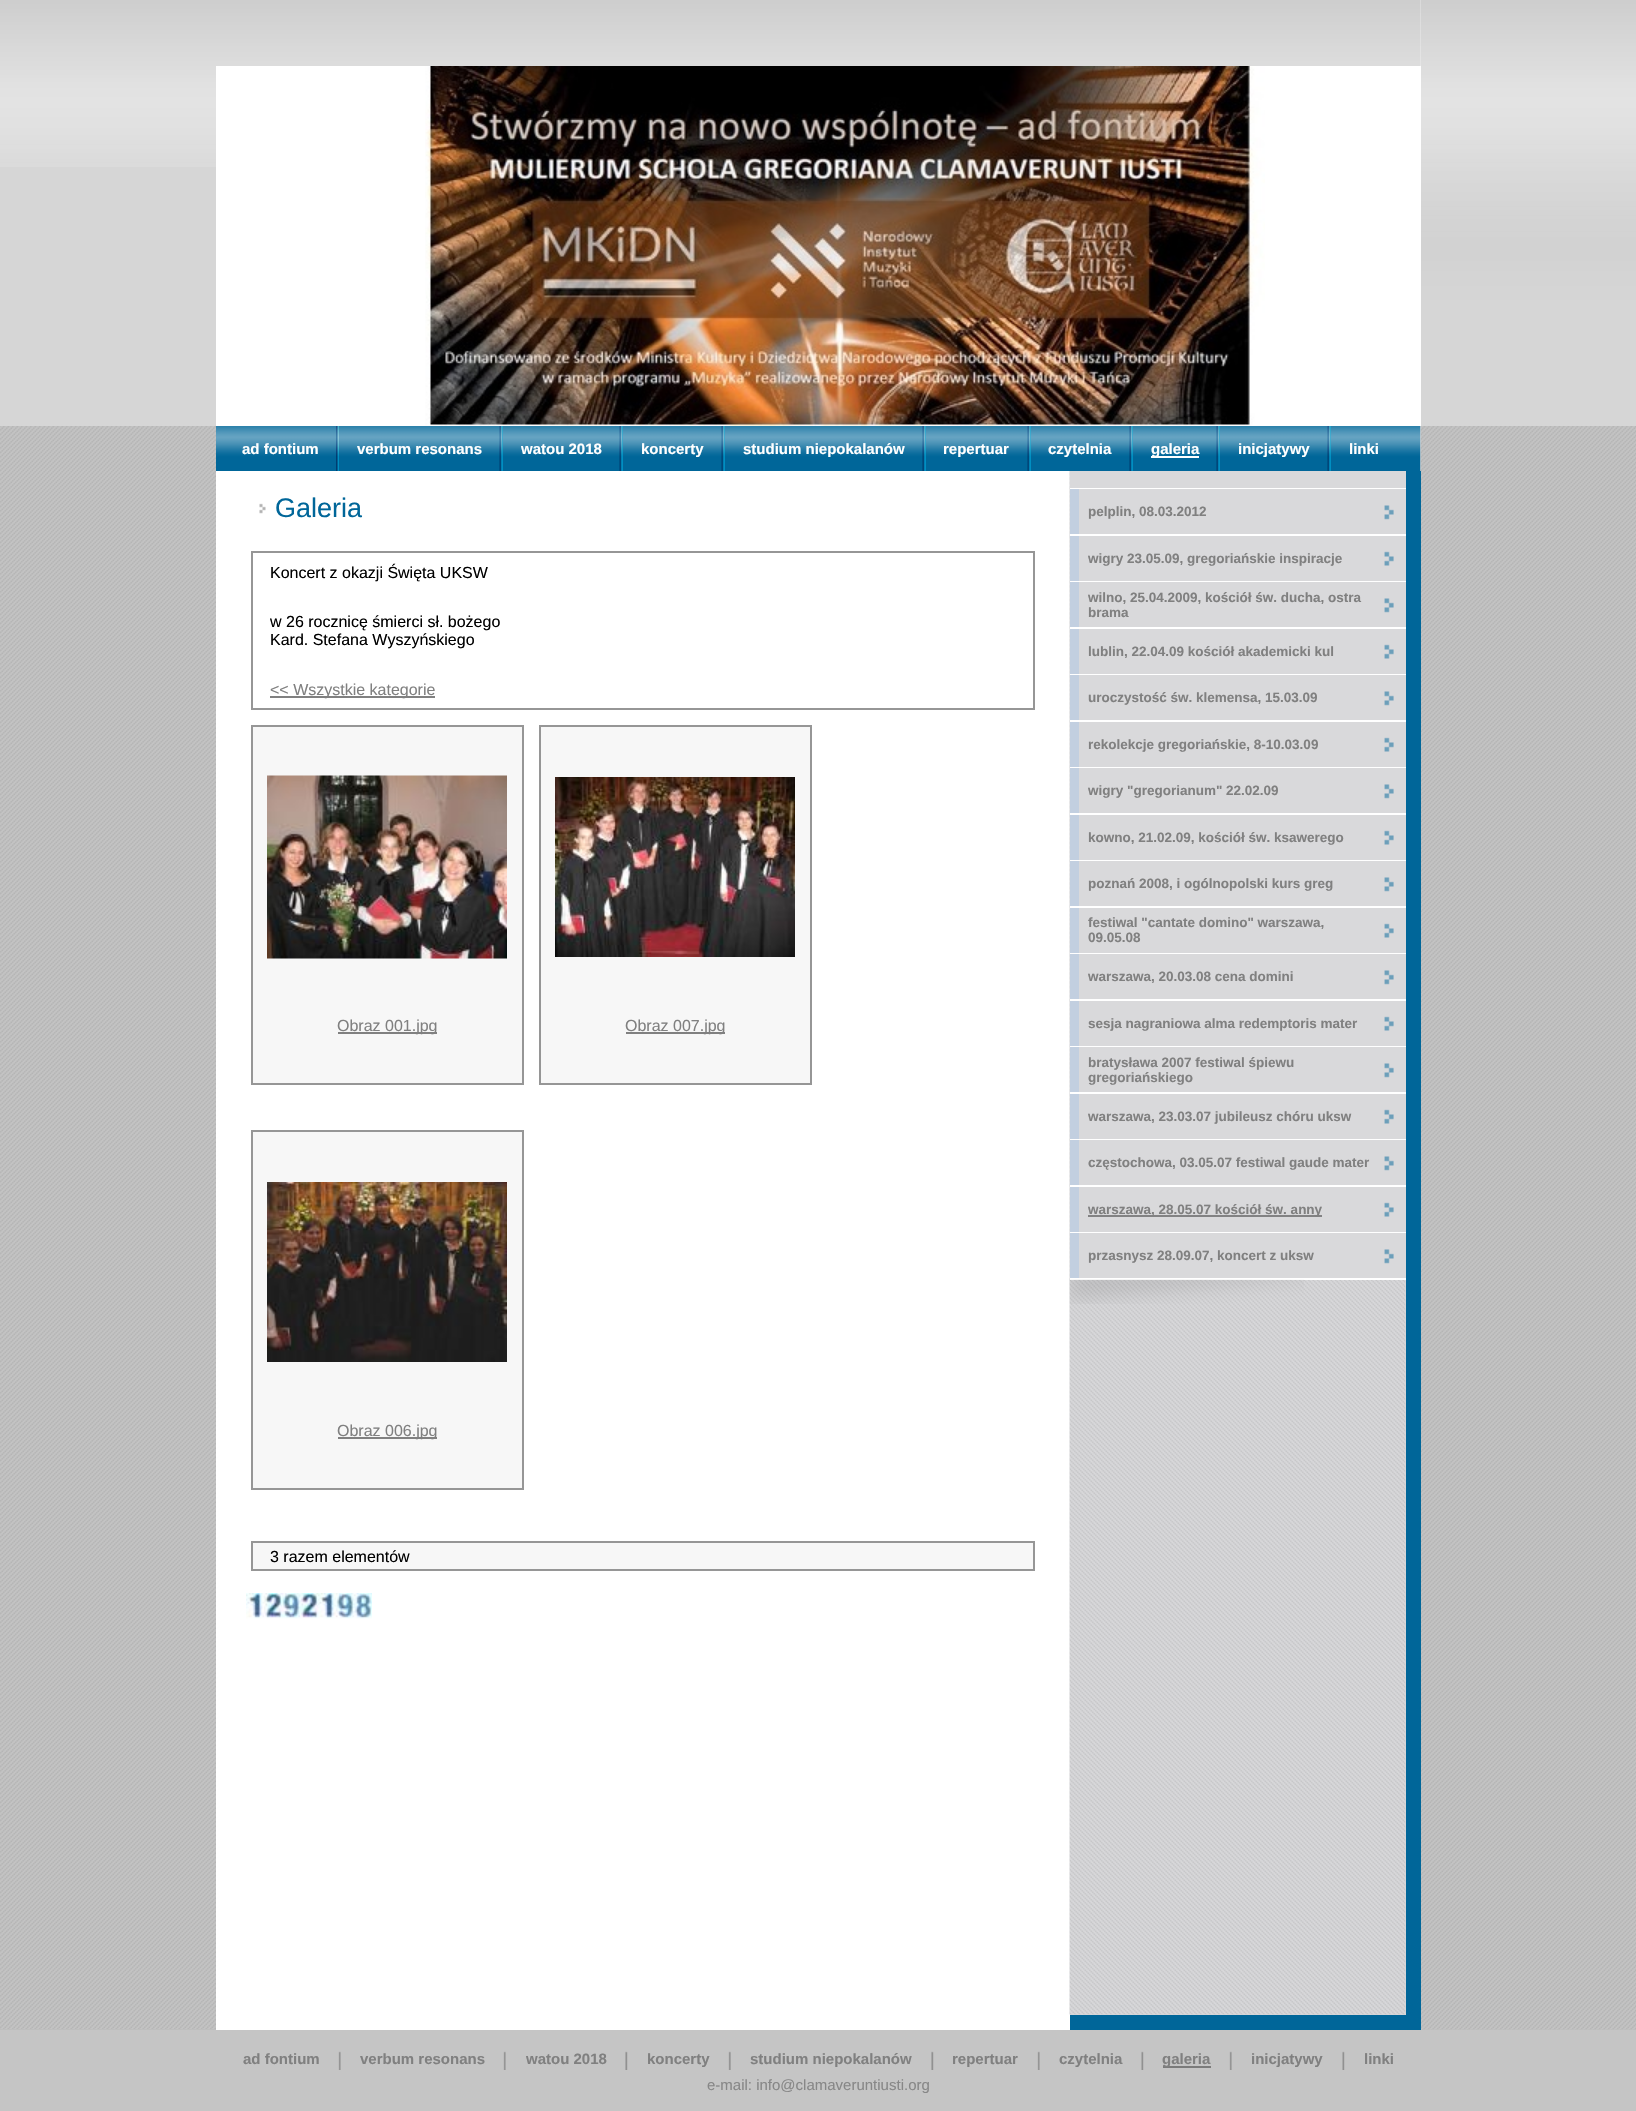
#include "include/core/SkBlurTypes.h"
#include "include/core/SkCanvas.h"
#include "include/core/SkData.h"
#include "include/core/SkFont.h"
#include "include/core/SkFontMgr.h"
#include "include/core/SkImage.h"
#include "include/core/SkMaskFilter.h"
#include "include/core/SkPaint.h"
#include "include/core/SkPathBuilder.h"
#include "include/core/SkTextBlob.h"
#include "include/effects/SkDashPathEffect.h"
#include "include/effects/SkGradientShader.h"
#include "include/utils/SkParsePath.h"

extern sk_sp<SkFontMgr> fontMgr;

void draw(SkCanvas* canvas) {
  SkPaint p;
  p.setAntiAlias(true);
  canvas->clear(SK_ColorWHITE);
  p.setColor(SkColorSetRGB(214, 214, 214));
  canvas->drawRect(SkRect::MakeLTRB(0, 167, 216, 426), p);
  canvas->drawImageRect(SkImages::DeferredFromEncodedData(SkData::MakeFromFileName("images/1.png")), SkRect::MakeLTRB(0, 0, 216, 167), SkSamplingOptions());
  canvas->drawImageRect(SkImages::DeferredFromEncodedData(SkData::MakeFromFileName("images/2.png")), SkRect::MakeLTRB(216, 0, 1421, 66), SkSamplingOptions());
  canvas->drawRect(SkRect::MakeLTRB(1421, 309, 1636, 426), p);
  canvas->drawImageRect(SkImages::DeferredFromEncodedData(SkData::MakeFromFileName("images/3.png")), SkRect::MakeLTRB(1420, 0, 1636, 309), SkSamplingOptions());
  p.setColor(SK_ColorWHITE);
  canvas->drawRect(SkRect::MakeLTRB(1420, 66, 1421, 309), p);
  canvas->drawImageRect(SkImages::DeferredFromEncodedData(SkData::MakeFromFileName("images/4.png")), SkRect::MakeLTRB(425, 66, 1265, 426), SkSamplingOptions());
  p.setColor(SkColorSetRGB(190, 190, 190));
  canvas->drawRect(SkRect::MakeLTRB(0, 2029, 216, 2030), p);
  canvas->drawImageRect(SkImages::DeferredFromEncodedData(SkData::MakeFromFileName("images/5.png")), SkRect::MakeLTRB(0, 426, 216, 2029), SkSamplingOptions());
  canvas->drawImageRect(SkImages::DeferredFromEncodedData(SkData::MakeFromFileName("images/6.png")), SkRect::MakeLTRB(216, 426, 1421, 471), SkSamplingOptions());
  canvas->drawImageRect(SkImages::DeferredFromEncodedData(SkData::MakeFromFileName("images/7.png")), SkRect::MakeLTRB(336, 426, 339, 471), SkSamplingOptions());
  p.setColor(SkColorSetRGB(0, 143, 194));
  canvas->drawRect(SkRect::MakeLTRB(502, 426, 503, 471), p);
  canvas->drawImageRect(SkImages::DeferredFromEncodedData(SkData::MakeFromFileName("images/8.png")), SkRect::MakeLTRB(499, 426, 503, 471), SkSamplingOptions());
  canvas->drawRect(SkRect::MakeLTRB(622, 426, 623, 471), p);
  canvas->drawImageRect(SkImages::DeferredFromEncodedData(SkData::MakeFromFileName("images/8.png")), SkRect::MakeLTRB(619, 426, 623, 471), SkSamplingOptions());
  canvas->drawRect(SkRect::MakeLTRB(724, 426, 725, 471), p);
  canvas->drawImageRect(SkImages::DeferredFromEncodedData(SkData::MakeFromFileName("images/8.png")), SkRect::MakeLTRB(721, 426, 725, 471), SkSamplingOptions());
  canvas->drawRect(SkRect::MakeLTRB(925, 426, 926, 471), p);
  canvas->drawImageRect(SkImages::DeferredFromEncodedData(SkData::MakeFromFileName("images/8.png")), SkRect::MakeLTRB(922, 426, 926, 471), SkSamplingOptions());
  canvas->drawRect(SkRect::MakeLTRB(1030, 426, 1031, 471), p);
  canvas->drawImageRect(SkImages::DeferredFromEncodedData(SkData::MakeFromFileName("images/9.png")), SkRect::MakeLTRB(1027, 426, 1031, 471), SkSamplingOptions());
  canvas->drawRect(SkRect::MakeLTRB(1132, 426, 1133, 471), p);
  canvas->drawImageRect(SkImages::DeferredFromEncodedData(SkData::MakeFromFileName("images/9.png")), SkRect::MakeLTRB(1129, 426, 1133, 471), SkSamplingOptions());
  p.setColor(SK_ColorWHITE);
  canvas->drawRect(SkRect::MakeLTRB(1151, 456, 1199, 458), p);
  p.setColor(SkColorSetRGB(0, 143, 194));
  canvas->drawRect(SkRect::MakeLTRB(1219, 426, 1220, 471), p);
  canvas->drawImageRect(SkImages::DeferredFromEncodedData(SkData::MakeFromFileName("images/9.png")), SkRect::MakeLTRB(1216, 426, 1220, 471), SkSamplingOptions());
  canvas->drawRect(SkRect::MakeLTRB(1330, 426, 1331, 471), p);
  canvas->drawImageRect(SkImages::DeferredFromEncodedData(SkData::MakeFromFileName("images/8.png")), SkRect::MakeLTRB(1327, 426, 1331, 471), SkSamplingOptions());
  p.setColor(SkColorSetRGB(190, 190, 190));
  canvas->drawRect(SkRect::MakeLTRB(1421, 2029, 1636, 2030), p);
  canvas->drawImageRect(SkImages::DeferredFromEncodedData(SkData::MakeFromFileName("images/10.png")), SkRect::MakeLTRB(1420, 426, 1636, 2030), SkSamplingOptions());
  canvas->drawImageRect(SkImages::DeferredFromEncodedData(SkData::MakeFromFileName("images/11.png")), SkRect::MakeLTRB(259, 503, 266, 514), SkSamplingOptions());
  p.setStyle(SkPaint::kStroke_Style);
  p.setStrokeWidth(2);
  p.setColor(SkColorSetRGB(150, 150, 150));
  canvas->drawRect(SkRect::MakeLTRB(252, 552, 1034, 709), p);
  p.setStyle(SkPaint::kFill_Style);
  p.setColor(SkColorSetRGB(128, 128, 128));
  canvas->drawRect(SkRect::MakeLTRB(270, 696, 435, 698), p);
  p.setColor(SkColorSetRGB(247, 247, 247));
  canvas->drawRect(SkRect::MakeLTRB(252, 726, 523, 1084), p);
  p.setStyle(SkPaint::kStroke_Style);
  p.setColor(SkColorSetRGB(150, 150, 150));
  canvas->drawRect(SkRect::MakeLTRB(252, 726, 523, 1084), p);
  canvas->drawImageRect(SkImages::DeferredFromEncodedData(SkData::MakeFromFileName("images/12.png")), SkRect::MakeLTRB(267, 775, 507, 959), SkSamplingOptions());
  p.setStyle(SkPaint::kFill_Style);
  p.setColor(SkColorSetRGB(128, 128, 128));
  canvas->drawRect(SkRect::MakeLTRB(338, 1032, 437, 1034), p);
  p.setColor(SkColorSetRGB(247, 247, 247));
  canvas->drawRect(SkRect::MakeLTRB(540, 726, 811, 1084), p);
  p.setStyle(SkPaint::kStroke_Style);
  p.setColor(SkColorSetRGB(150, 150, 150));
  canvas->drawRect(SkRect::MakeLTRB(540, 726, 811, 1084), p);
  canvas->drawImageRect(SkImages::DeferredFromEncodedData(SkData::MakeFromFileName("images/13.png")), SkRect::MakeLTRB(555, 777, 795, 957), SkSamplingOptions());
  p.setStyle(SkPaint::kFill_Style);
  p.setColor(SkColorSetRGB(128, 128, 128));
  canvas->drawRect(SkRect::MakeLTRB(626, 1032, 725, 1034), p);
  p.setColor(SkColorSetRGB(247, 247, 247));
  canvas->drawRect(SkRect::MakeLTRB(252, 1131, 523, 1489), p);
  p.setStyle(SkPaint::kStroke_Style);
  p.setColor(SkColorSetRGB(150, 150, 150));
  canvas->drawRect(SkRect::MakeLTRB(252, 1131, 523, 1489), p);
  canvas->drawImageRect(SkImages::DeferredFromEncodedData(SkData::MakeFromFileName("images/14.png")), SkRect::MakeLTRB(267, 1182, 507, 1362), SkSamplingOptions());
  p.setStyle(SkPaint::kFill_Style);
  p.setColor(SkColorSetRGB(128, 128, 128));
  canvas->drawRect(SkRect::MakeLTRB(338, 1437, 437, 1439), p);
  p.setColor(SkColorSetRGB(247, 247, 247));
  canvas->drawRect(SkRect::MakeLTRB(252, 1542, 1034, 1570), p);
  p.setStyle(SkPaint::kStroke_Style);
  p.setColor(SkColorSetRGB(150, 150, 150));
  canvas->drawRect(SkRect::MakeLTRB(252, 1542, 1034, 1570), p);
  canvas->drawImageRect(SkImages::DeferredFromEncodedData(SkData::MakeFromFileName("images/15.png")), SkRect::MakeLTRB(246, 1593, 372, 1619), SkSamplingOptions());
  p.setStyle(SkPaint::kFill_Style);
  p.setColor(SkColorSetRGB(217, 217, 219));
  canvas->drawRect(SkRect::MakeLTRB(1070, 1280, 1406, 2015), p);
  canvas->drawImageRect(SkImages::DeferredFromEncodedData(SkData::MakeFromFileName("images/16.png")), SkRect::MakeLTRB(1069, 471, 1406, 2015), SkSamplingOptions());
  canvas->drawRect(SkRect::MakeLTRB(1070, 471, 1406, 488), p);
  p.setColor(SK_ColorWHITE);
  canvas->drawRect(SkRect::MakeLTRB(1070, 488, 1406, 489), p);
  p.setColor(SkColorSetRGB(217, 217, 219));
  canvas->drawRect(SkRect::MakeLTRB(1079, 489, 1406, 534), p);
  p.setColor(SkColorSetRGB(194, 207, 224));
  canvas->drawRect(SkRect::MakeLTRB(1070, 489, 1079, 534), p);
  canvas->drawImageRect(SkImages::DeferredFromEncodedData(SkData::MakeFromFileName("images/17.png")), SkRect::MakeLTRB(1384, 505, 1394, 520), SkSamplingOptions());
  p.setColor(SK_ColorWHITE);
  canvas->drawRect(SkRect::MakeLTRB(1070, 534, 1406, 536), p);
  p.setColor(SkColorSetRGB(217, 217, 219));
  canvas->drawRect(SkRect::MakeLTRB(1079, 536, 1406, 581), p);
  p.setColor(SkColorSetRGB(194, 207, 224));
  canvas->drawRect(SkRect::MakeLTRB(1070, 536, 1079, 581), p);
  canvas->drawImageRect(SkImages::DeferredFromEncodedData(SkData::MakeFromFileName("images/18.png")), SkRect::MakeLTRB(1384, 551, 1394, 566), SkSamplingOptions());
  p.setColor(SK_ColorWHITE);
  canvas->drawRect(SkRect::MakeLTRB(1070, 581, 1406, 582), p);
  p.setColor(SkColorSetRGB(217, 217, 219));
  canvas->drawRect(SkRect::MakeLTRB(1079, 582, 1406, 627), p);
  p.setColor(SkColorSetRGB(194, 207, 224));
  canvas->drawRect(SkRect::MakeLTRB(1070, 582, 1079, 627), p);
  canvas->drawImageRect(SkImages::DeferredFromEncodedData(SkData::MakeFromFileName("images/17.png")), SkRect::MakeLTRB(1384, 598, 1394, 613), SkSamplingOptions());
  p.setColor(SK_ColorWHITE);
  canvas->drawRect(SkRect::MakeLTRB(1070, 627, 1406, 629), p);
  p.setColor(SkColorSetRGB(217, 217, 219));
  canvas->drawRect(SkRect::MakeLTRB(1079, 629, 1406, 674), p);
  p.setColor(SkColorSetRGB(194, 207, 224));
  canvas->drawRect(SkRect::MakeLTRB(1070, 629, 1079, 674), p);
  canvas->drawImageRect(SkImages::DeferredFromEncodedData(SkData::MakeFromFileName("images/18.png")), SkRect::MakeLTRB(1384, 644, 1394, 659), SkSamplingOptions());
  p.setColor(SK_ColorWHITE);
  canvas->drawRect(SkRect::MakeLTRB(1070, 674, 1406, 675), p);
  p.setColor(SkColorSetRGB(217, 217, 219));
  canvas->drawRect(SkRect::MakeLTRB(1079, 675, 1406, 720), p);
  p.setColor(SkColorSetRGB(194, 207, 224));
  canvas->drawRect(SkRect::MakeLTRB(1070, 675, 1079, 720), p);
  canvas->drawImageRect(SkImages::DeferredFromEncodedData(SkData::MakeFromFileName("images/17.png")), SkRect::MakeLTRB(1384, 691, 1394, 706), SkSamplingOptions());
  p.setColor(SK_ColorWHITE);
  canvas->drawRect(SkRect::MakeLTRB(1070, 720, 1406, 722), p);
  p.setColor(SkColorSetRGB(217, 217, 219));
  canvas->drawRect(SkRect::MakeLTRB(1079, 722, 1406, 767), p);
  p.setColor(SkColorSetRGB(194, 207, 224));
  canvas->drawRect(SkRect::MakeLTRB(1070, 722, 1079, 767), p);
  canvas->drawImageRect(SkImages::DeferredFromEncodedData(SkData::MakeFromFileName("images/18.png")), SkRect::MakeLTRB(1384, 737, 1394, 752), SkSamplingOptions());
  p.setColor(SK_ColorWHITE);
  canvas->drawRect(SkRect::MakeLTRB(1070, 767, 1406, 768), p);
  p.setColor(SkColorSetRGB(217, 217, 219));
  canvas->drawRect(SkRect::MakeLTRB(1079, 768, 1406, 813), p);
  p.setColor(SkColorSetRGB(194, 207, 224));
  canvas->drawRect(SkRect::MakeLTRB(1070, 768, 1079, 813), p);
  canvas->drawImageRect(SkImages::DeferredFromEncodedData(SkData::MakeFromFileName("images/17.png")), SkRect::MakeLTRB(1384, 784, 1394, 799), SkSamplingOptions());
  p.setColor(SK_ColorWHITE);
  canvas->drawRect(SkRect::MakeLTRB(1070, 813, 1406, 815), p);
  p.setColor(SkColorSetRGB(217, 217, 219));
  canvas->drawRect(SkRect::MakeLTRB(1079, 815, 1406, 860), p);
  p.setColor(SkColorSetRGB(194, 207, 224));
  canvas->drawRect(SkRect::MakeLTRB(1070, 815, 1079, 860), p);
  canvas->drawImageRect(SkImages::DeferredFromEncodedData(SkData::MakeFromFileName("images/18.png")), SkRect::MakeLTRB(1384, 830, 1394, 845), SkSamplingOptions());
  p.setColor(SK_ColorWHITE);
  canvas->drawRect(SkRect::MakeLTRB(1070, 860, 1406, 861), p);
  p.setColor(SkColorSetRGB(217, 217, 219));
  canvas->drawRect(SkRect::MakeLTRB(1079, 861, 1406, 906), p);
  p.setColor(SkColorSetRGB(194, 207, 224));
  canvas->drawRect(SkRect::MakeLTRB(1070, 861, 1079, 906), p);
  canvas->drawImageRect(SkImages::DeferredFromEncodedData(SkData::MakeFromFileName("images/17.png")), SkRect::MakeLTRB(1384, 877, 1394, 892), SkSamplingOptions());
  p.setColor(SK_ColorWHITE);
  canvas->drawRect(SkRect::MakeLTRB(1070, 906, 1406, 908), p);
  p.setColor(SkColorSetRGB(217, 217, 219));
  canvas->drawRect(SkRect::MakeLTRB(1079, 908, 1406, 953), p);
  p.setColor(SkColorSetRGB(194, 207, 224));
  canvas->drawRect(SkRect::MakeLTRB(1070, 908, 1079, 953), p);
  canvas->drawImageRect(SkImages::DeferredFromEncodedData(SkData::MakeFromFileName("images/18.png")), SkRect::MakeLTRB(1384, 923, 1394, 938), SkSamplingOptions());
  p.setColor(SK_ColorWHITE);
  canvas->drawRect(SkRect::MakeLTRB(1070, 953, 1406, 954), p);
  p.setColor(SkColorSetRGB(217, 217, 219));
  canvas->drawRect(SkRect::MakeLTRB(1079, 954, 1406, 999), p);
  p.setColor(SkColorSetRGB(194, 207, 224));
  canvas->drawRect(SkRect::MakeLTRB(1070, 954, 1079, 999), p);
  canvas->drawImageRect(SkImages::DeferredFromEncodedData(SkData::MakeFromFileName("images/17.png")), SkRect::MakeLTRB(1384, 970, 1394, 985), SkSamplingOptions());
  p.setColor(SK_ColorWHITE);
  canvas->drawRect(SkRect::MakeLTRB(1070, 999, 1406, 1001), p);
  p.setColor(SkColorSetRGB(217, 217, 219));
  canvas->drawRect(SkRect::MakeLTRB(1079, 1001, 1406, 1046), p);
  p.setColor(SkColorSetRGB(194, 207, 224));
  canvas->drawRect(SkRect::MakeLTRB(1070, 1001, 1079, 1046), p);
  canvas->drawImageRect(SkImages::DeferredFromEncodedData(SkData::MakeFromFileName("images/18.png")), SkRect::MakeLTRB(1384, 1016, 1394, 1031), SkSamplingOptions());
  p.setColor(SK_ColorWHITE);
  canvas->drawRect(SkRect::MakeLTRB(1070, 1046, 1406, 1047), p);
  p.setColor(SkColorSetRGB(217, 217, 219));
  canvas->drawRect(SkRect::MakeLTRB(1079, 1047, 1406, 1092), p);
  p.setColor(SkColorSetRGB(194, 207, 224));
  canvas->drawRect(SkRect::MakeLTRB(1070, 1047, 1079, 1092), p);
  canvas->drawImageRect(SkImages::DeferredFromEncodedData(SkData::MakeFromFileName("images/17.png")), SkRect::MakeLTRB(1384, 1063, 1394, 1078), SkSamplingOptions());
  p.setColor(SK_ColorWHITE);
  canvas->drawRect(SkRect::MakeLTRB(1070, 1092, 1406, 1094), p);
  p.setColor(SkColorSetRGB(217, 217, 219));
  canvas->drawRect(SkRect::MakeLTRB(1079, 1094, 1406, 1139), p);
  p.setColor(SkColorSetRGB(194, 207, 224));
  canvas->drawRect(SkRect::MakeLTRB(1070, 1094, 1079, 1139), p);
  canvas->drawImageRect(SkImages::DeferredFromEncodedData(SkData::MakeFromFileName("images/18.png")), SkRect::MakeLTRB(1384, 1109, 1394, 1124), SkSamplingOptions());
  p.setColor(SK_ColorWHITE);
  canvas->drawRect(SkRect::MakeLTRB(1070, 1139, 1406, 1140), p);
  p.setColor(SkColorSetRGB(217, 217, 219));
  canvas->drawRect(SkRect::MakeLTRB(1079, 1140, 1406, 1185), p);
  p.setColor(SkColorSetRGB(194, 207, 224));
  canvas->drawRect(SkRect::MakeLTRB(1070, 1140, 1079, 1185), p);
  canvas->drawImageRect(SkImages::DeferredFromEncodedData(SkData::MakeFromFileName("images/17.png")), SkRect::MakeLTRB(1384, 1156, 1394, 1171), SkSamplingOptions());
  p.setColor(SK_ColorWHITE);
  canvas->drawRect(SkRect::MakeLTRB(1070, 1185, 1406, 1187), p);
  p.setColor(SkColorSetRGB(217, 217, 219));
  canvas->drawRect(SkRect::MakeLTRB(1079, 1187, 1406, 1232), p);
  p.setColor(SkColorSetRGB(194, 207, 224));
  canvas->drawRect(SkRect::MakeLTRB(1070, 1187, 1079, 1232), p);
  p.setColor(SkColorSetRGB(130, 130, 131));
  canvas->drawRect(SkRect::MakeLTRB(1088, 1215, 1322, 1217), p);
  canvas->drawImageRect(SkImages::DeferredFromEncodedData(SkData::MakeFromFileName("images/18.png")), SkRect::MakeLTRB(1384, 1202, 1394, 1217), SkSamplingOptions());
  p.setColor(SK_ColorWHITE);
  canvas->drawRect(SkRect::MakeLTRB(1070, 1232, 1406, 1233), p);
  p.setColor(SkColorSetRGB(217, 217, 219));
  canvas->drawRect(SkRect::MakeLTRB(1079, 1233, 1406, 1278), p);
  p.setColor(SkColorSetRGB(194, 207, 224));
  canvas->drawRect(SkRect::MakeLTRB(1070, 1233, 1079, 1278), p);
  canvas->drawImageRect(SkImages::DeferredFromEncodedData(SkData::MakeFromFileName("images/17.png")), SkRect::MakeLTRB(1384, 1249, 1394, 1264), SkSamplingOptions());
  p.setColor(SK_ColorWHITE);
  canvas->drawRect(SkRect::MakeLTRB(1070, 1278, 1406, 1280), p);
  canvas->drawImageRect(SkImages::DeferredFromEncodedData(SkData::MakeFromFileName("images/19.png")), SkRect::MakeLTRB(1069, 1279, 1304, 1304), SkSamplingOptions());
  p.setColor(SkColorSetRGB(0, 102, 153));
  canvas->drawRect(SkRect::MakeLTRB(1406, 471, 1421, 2015), p);
  canvas->drawRect(SkRect::MakeLTRB(1070, 2015, 1421, 2030), p);
  p.setColor(SkColorSetRGB(197, 197, 197));
  canvas->drawRect(SkRect::MakeLTRB(0, 2030, 1636, 2111), p);
  canvas->drawImageRect(SkImages::DeferredFromEncodedData(SkData::MakeFromFileName("images/20.png")), SkRect::MakeLTRB(338, 2051, 341, 2070), SkSamplingOptions());
  canvas->drawImageRect(SkImages::DeferredFromEncodedData(SkData::MakeFromFileName("images/20.png")), SkRect::MakeLTRB(503, 2051, 506, 2070), SkSamplingOptions());
  canvas->drawImageRect(SkImages::DeferredFromEncodedData(SkData::MakeFromFileName("images/21.png")), SkRect::MakeLTRB(625, 2051, 628, 2070), SkSamplingOptions());
  canvas->drawImageRect(SkImages::DeferredFromEncodedData(SkData::MakeFromFileName("images/22.png")), SkRect::MakeLTRB(728, 2051, 731, 2070), SkSamplingOptions());
  canvas->drawImageRect(SkImages::DeferredFromEncodedData(SkData::MakeFromFileName("images/21.png")), SkRect::MakeLTRB(931, 2051, 934, 2070), SkSamplingOptions());
  canvas->drawImageRect(SkImages::DeferredFromEncodedData(SkData::MakeFromFileName("images/20.png")), SkRect::MakeLTRB(1037, 2051, 1040, 2070), SkSamplingOptions());
  canvas->drawImageRect(SkImages::DeferredFromEncodedData(SkData::MakeFromFileName("images/23.png")), SkRect::MakeLTRB(1141, 2051, 1144, 2070), SkSamplingOptions());
  p.setColor(SkColorSetRGB(123, 123, 123));
  canvas->drawRect(SkRect::MakeLTRB(1163, 2066, 1211, 2068), p);
  canvas->drawImageRect(SkImages::DeferredFromEncodedData(SkData::MakeFromFileName("images/20.png")), SkRect::MakeLTRB(1229, 2051, 1232, 2070), SkSamplingOptions());
  canvas->drawImageRect(SkImages::DeferredFromEncodedData(SkData::MakeFromFileName("images/23.png")), SkRect::MakeLTRB(1342, 2051, 1345, 2070), SkSamplingOptions());
  SkFont font1(fontMgr->matchFamilyStyle("Liberation Sans", SkFontStyle::Bold()), 15);
  font1.setSubpixel(true);
  p.setColor(SK_ColorWHITE);
  canvas->drawString("ad fontium", 242, 454, font1, p);
  canvas->drawString("verbum resonans", 357, 454, font1, p);
  canvas->drawString("watou 2018", 521, 454, font1, p);
  canvas->drawString("koncerty", 641, 454, font1, p);
  canvas->drawString("studium niepokalanów", 743, 454, font1, p);
  canvas->drawString("repertuar", 943, 454, font1, p);
  canvas->drawString("czytelnia", 1048, 454, font1, p);
  canvas->drawString("galeria", 1151, 454, font1, p);
  canvas->drawString("inicjatywy", 1238, 454, font1, p);
  canvas->drawString("linki", 1349, 454, font1, p);
  SkFont font2(fontMgr->matchFamilyStyle("Liberation Sans", SkFontStyle::Normal()), 27);
  font2.setSubpixel(true);
  p.setColor(SkColorSetRGB(0, 102, 153));
  canvas->drawString("Galeria", 275, 517, font2, p);
  SkFont font3(fontMgr->matchFamilyStyle("Liberation Sans", SkFontStyle::Normal()), 16);
  font3.setSubpixel(true);
  p.setColor(SK_ColorBLACK);
  canvas->drawString("Koncert z okazji Święta UKSW", 270, 578, font3, p);
  canvas->drawString("w 26 rocznicę śmierci sł. bożego", 270, 627, font3, p);
  canvas->drawString("Kard. Stefana Wyszyńskiego", 270, 645, font3, p);
  p.setColor(SkColorSetRGB(128, 128, 128));
  canvas->drawString("<< Wszystkie kategorie", 270, 695, font3, p);
  canvas->drawString("Obraz 001.jpg", 337, 1031, font3, p);
  canvas->drawString("Obraz 007.jpg", 625, 1031, font3, p);
  canvas->drawString("Obraz 006.jpg", 337, 1436, font3, p);
  p.setColor(SK_ColorBLACK);
  canvas->drawString("3 razem elementów", 270, 1562, font3, p);
  SkFont font4(fontMgr->matchFamilyStyle("Liberation Sans", SkFontStyle::Bold()), 13.5f);
  font4.setSubpixel(true);
  p.setColor(SkColorSetRGB(128, 128, 128));
  canvas->drawString("pelplin, 08.03.2012", 1088, 516, font4, p);
  canvas->drawString("wigry 23.05.09, gregoriańskie inspiracje", 1088, 563, font4, p);
  canvas->drawString("wilno, 25.04.2009, kościół św. ducha, ostra", 1088, 602, font4, p);
  canvas->drawString("brama", 1088, 617, font4, p);
  canvas->drawString("lublin, 22.04.09 kościół akademicki kul", 1088, 656, font4, p);
  canvas->drawString("uroczystość św. klemensa, 15.03.09", 1088, 702, font4, p);
  canvas->drawString("rekolekcje gregoriańskie, 8-10.03.09", 1088, 749, font4, p);
  canvas->drawString("wigry \"gregorianum\" 22.02.09", 1088, 795, font4, p);
  canvas->drawString("kowno, 21.02.09, kościół św. ksawerego", 1088, 842, font4, p);
  canvas->drawString("poznań 2008, i ogólnopolski kurs greg", 1088, 888, font4, p);
  canvas->drawString("festiwal \"cantate domino\" warszawa,", 1088, 927, font4, p);
  canvas->drawString("09.05.08", 1088, 942, font4, p);
  canvas->drawString("warszawa, 20.03.08 cena domini", 1088, 981, font4, p);
  canvas->drawString("sesja nagraniowa alma redemptoris mater", 1088, 1028, font4, p);
  canvas->drawString("bratysława 2007 festiwal śpiewu", 1088, 1067, font4, p);
  canvas->drawString("gregoriańskiego", 1088, 1082, font4, p);
  canvas->drawString("warszawa, 23.03.07 jubileusz chóru uksw", 1088, 1121, font4, p);
  canvas->drawString("częstochowa, 03.05.07 festiwal gaude mater", 1088, 1167, font4, p);
  canvas->drawString("warszawa, 28.05.07 kościół św. anny", 1088, 1214, font4, p);
  canvas->drawString("przasnysz 28.09.07, koncert z uksw", 1088, 1260, font4, p);
  canvas->drawString("ad fontium", 243, 2064, font1, p);
  canvas->drawString("verbum resonans", 360, 2064, font1, p);
  canvas->drawString("watou 2018", 526, 2064, font1, p);
  canvas->drawString("koncerty", 647, 2064, font1, p);
  canvas->drawString("studium niepokalanów", 750, 2064, font1, p);
  canvas->drawString("repertuar", 952, 2064, font1, p);
  canvas->drawString("czytelnia", 1059, 2064, font1, p);
  canvas->drawString("galeria", 1162, 2064, font1, p);
  canvas->drawString("inicjatywy", 1251, 2064, font1, p);
  canvas->drawString("linki", 1364, 2064, font1, p);
  SkFont font5(fontMgr->matchFamilyStyle("Liberation Sans", SkFontStyle::Normal()), 15);
  font5.setSubpixel(true);
  p.setColor(SkColorSetRGB(135, 135, 135));
  canvas->drawString("e-mail: info@clamaveruntiusti.org", 707, 2090, font5, p);
}
